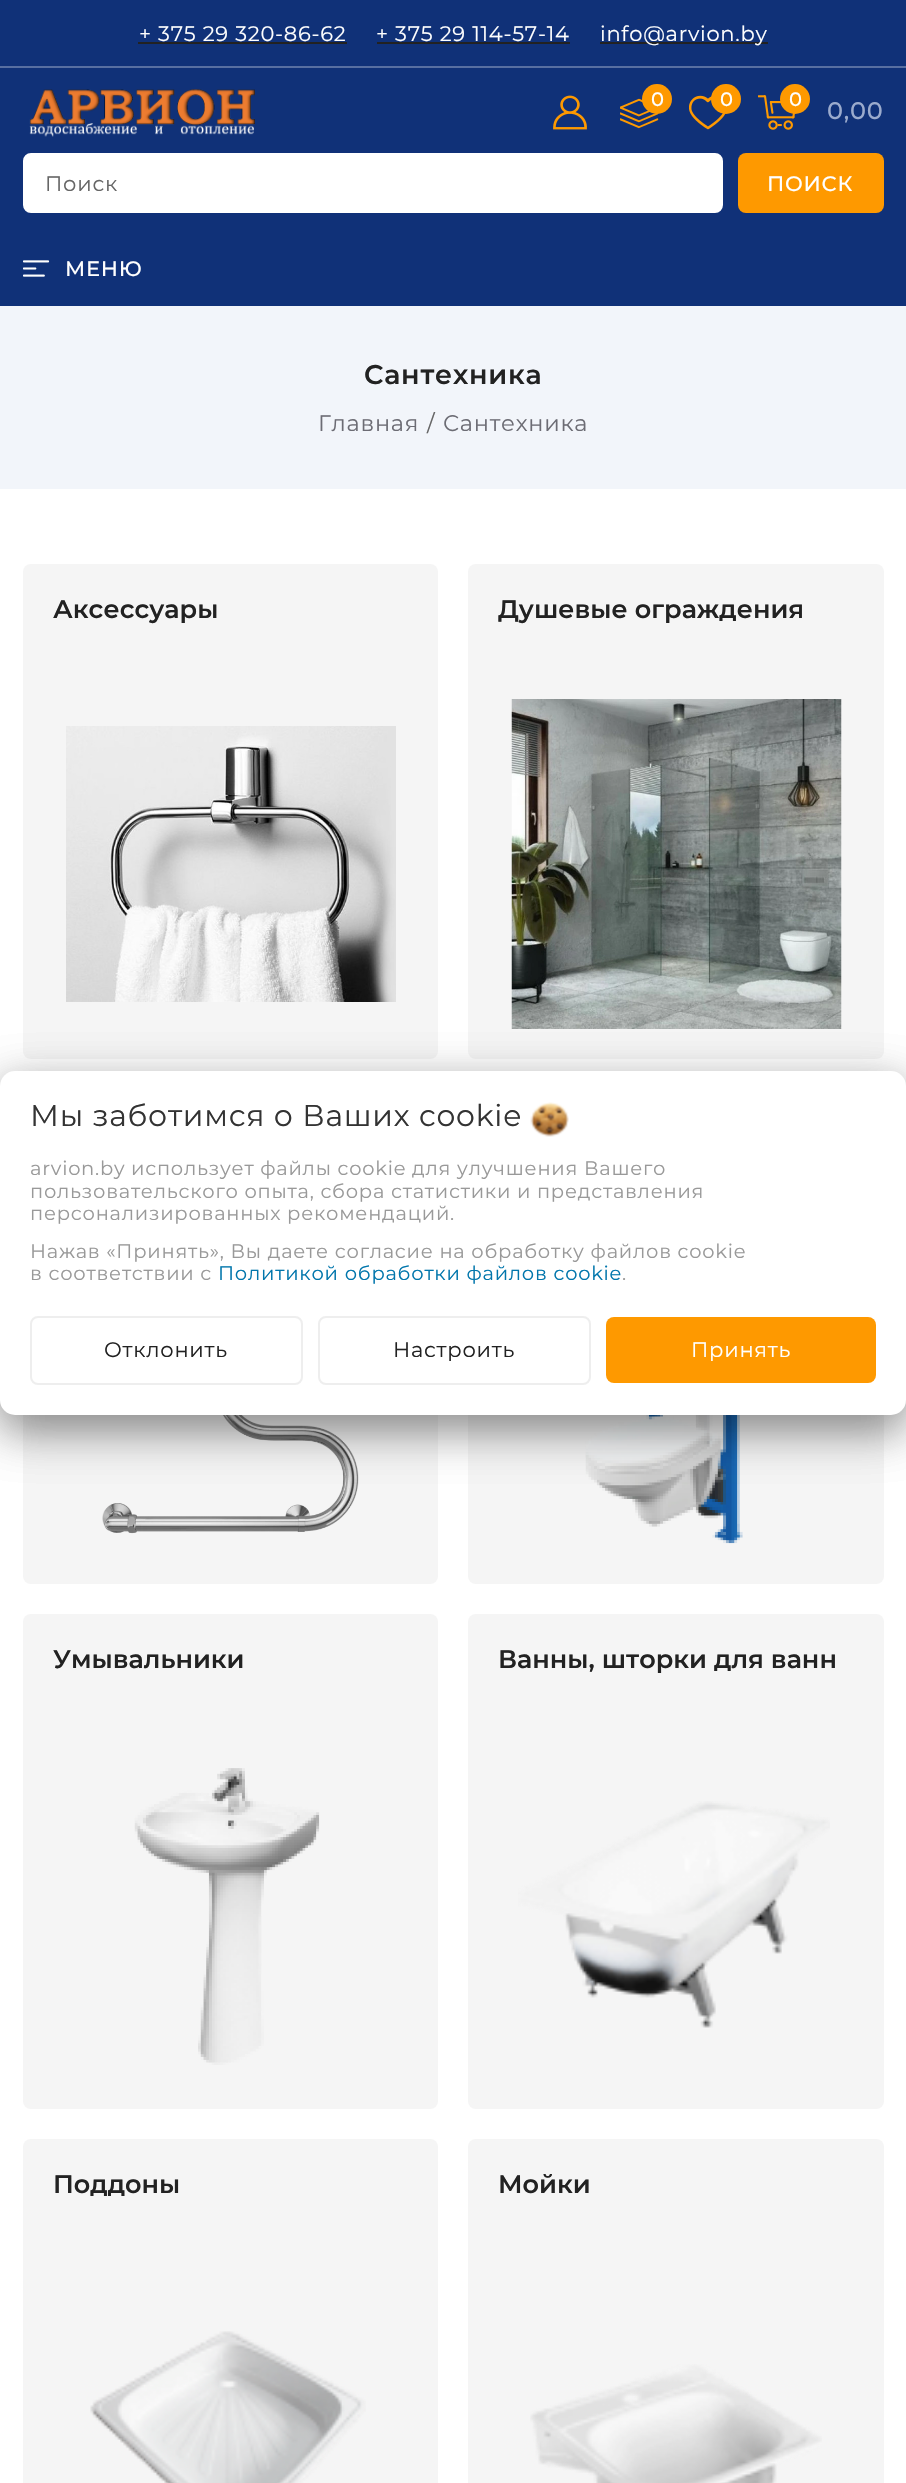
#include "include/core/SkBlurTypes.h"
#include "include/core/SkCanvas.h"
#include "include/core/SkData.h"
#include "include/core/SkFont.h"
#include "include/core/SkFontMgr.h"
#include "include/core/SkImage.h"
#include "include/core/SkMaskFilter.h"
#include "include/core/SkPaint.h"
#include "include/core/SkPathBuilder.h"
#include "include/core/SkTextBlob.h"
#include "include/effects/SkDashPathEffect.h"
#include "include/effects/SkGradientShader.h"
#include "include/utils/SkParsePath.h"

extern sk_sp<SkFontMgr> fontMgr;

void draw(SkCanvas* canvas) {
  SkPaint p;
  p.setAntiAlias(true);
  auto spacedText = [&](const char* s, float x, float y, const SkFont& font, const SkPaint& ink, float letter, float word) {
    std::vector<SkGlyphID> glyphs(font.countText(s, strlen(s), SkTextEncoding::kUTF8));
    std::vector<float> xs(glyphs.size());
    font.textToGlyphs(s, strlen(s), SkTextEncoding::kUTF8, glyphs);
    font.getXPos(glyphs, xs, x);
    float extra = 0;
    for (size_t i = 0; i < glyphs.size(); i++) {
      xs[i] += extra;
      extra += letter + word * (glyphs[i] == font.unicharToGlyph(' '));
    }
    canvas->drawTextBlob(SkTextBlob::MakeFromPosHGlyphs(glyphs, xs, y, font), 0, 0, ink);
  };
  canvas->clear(SK_ColorWHITE);
  p.setColor(SkColorSetRGB(16, 49, 120));
  canvas->drawRect(SkRect::MakeLTRB(0, 0, 906, 306), p);
  p.setColor(SkColorSetRGB(88, 111, 161));
  canvas->drawRect(SkRect::MakeLTRB(0, 66, 906, 68), p);
  p.setColor(SkColorSetRGB(34, 34, 34));
  canvas->drawRect(SkRect::MakeLTRB(138, 42, 347, 44), p);
  canvas->drawRect(SkRect::MakeLTRB(377, 42, 570, 44), p);
  canvas->drawRect(SkRect::MakeLTRB(600, 42, 768, 44), p);
  canvas->drawImageRect(SkImages::DeferredFromEncodedData(SkData::MakeFromFileName("images/1.png")), SkRect::MakeLTRB(29, 89, 255, 137), SkSamplingOptions());
  canvas->drawImageRect(SkImages::DeferredFromEncodedData(SkData::MakeFromFileName("images/2.png")), SkRect::MakeLTRB(553, 95, 587, 130), SkSamplingOptions());
  canvas->drawImageRect(SkImages::DeferredFromEncodedData(SkData::MakeFromFileName("images/3.png")), SkRect::MakeLTRB(620, 98, 659, 129), SkSamplingOptions());
  p.setColor(SkColorSetRGB(254, 153, 0));
  canvas->drawCircle(657, 99, 15, p);
  canvas->drawImageRect(SkImages::DeferredFromEncodedData(SkData::MakeFromFileName("images/4.png")), SkRect::MakeLTRB(689, 95, 726, 130), SkSamplingOptions());
  canvas->drawCircle(726, 99, 15, p);
  canvas->drawImageRect(SkImages::DeferredFromEncodedData(SkData::MakeFromFileName("images/5.png")), SkRect::MakeLTRB(758, 95, 795, 130), SkSamplingOptions());
  canvas->drawCircle(795, 99, 15, p);
  p.setColor(SK_ColorWHITE);
  canvas->drawRoundRect(SkRect::MakeLTRB(24, 154, 722, 212), 7, 7, p);
  p.setStyle(SkPaint::kStroke_Style);
  p.setStrokeWidth(2);
  canvas->drawRoundRect(SkRect::MakeLTRB(24, 154, 722, 212), 7, 7, p);
  p.setStyle(SkPaint::kFill_Style);
  p.setColor(SkColorSetRGB(254, 153, 0));
  canvas->drawRoundRect(SkRect::MakeLTRB(738, 153, 884, 213), 8, 8, p);
  canvas->drawImageRect(SkImages::DeferredFromEncodedData(SkData::MakeFromFileName("images/6.png")), SkRect::MakeLTRB(23, 260, 50, 277), SkSamplingOptions());
  p.setColor(SkColorSetRGB(242, 245, 250));
  canvas->drawRect(SkRect::MakeLTRB(0, 306, 906, 489), p);
  p.setColor(SkColorSetRGB(245, 245, 245));
  canvas->drawRoundRect(SkRect::MakeLTRB(23, 564, 438, 1059), 8, 8, p);
  canvas->drawImageRect(SkImages::DeferredFromEncodedData(SkData::MakeFromFileName("images/7.png")), SkRect::MakeLTRB(66, 726, 396, 1002), SkSamplingOptions());
  canvas->drawRoundRect(SkRect::MakeLTRB(468, 564, 884, 1059), 8, 8, p);
  canvas->drawImageRect(SkImages::DeferredFromEncodedData(SkData::MakeFromFileName("images/8.png")), SkRect::MakeLTRB(511, 699, 842, 1029), SkSamplingOptions());
  canvas->drawRoundRect(SkRect::MakeLTRB(23, 1089, 438, 1584), 8, 8, p);
  canvas->drawImageRect(SkImages::DeferredFromEncodedData(SkData::MakeFromFileName("images/9.png")), SkRect::MakeLTRB(102, 1415, 359, 1534), SkSamplingOptions());
  canvas->drawRoundRect(SkRect::MakeLTRB(468, 1089, 884, 1584), 8, 8, p);
  canvas->drawImageRect(SkImages::DeferredFromEncodedData(SkData::MakeFromFileName("images/10.png")), SkRect::MakeLTRB(585, 1415, 743, 1544), SkSamplingOptions());
  canvas->drawRoundRect(SkRect::MakeLTRB(23, 1614, 438, 2109), 8, 8, p);
  canvas->drawImageRect(SkImages::DeferredFromEncodedData(SkData::MakeFromFileName("images/11.png")), SkRect::MakeLTRB(134, 1768, 320, 2065), SkSamplingOptions());
  canvas->drawRoundRect(SkRect::MakeLTRB(468, 1614, 884, 2109), 8, 8, p);
  canvas->drawImageRect(SkImages::DeferredFromEncodedData(SkData::MakeFromFileName("images/12.png")), SkRect::MakeLTRB(518, 1801, 830, 2028), SkSamplingOptions());
  canvas->drawRoundRect(SkRect::MakeLTRB(23, 2139, 438, 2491), 8, 8, p);
  canvas->drawImageRect(SkImages::DeferredFromEncodedData(SkData::MakeFromFileName("images/13.png")), SkRect::MakeLTRB(90, 2331, 366, 2483), SkSamplingOptions());
  canvas->drawRoundRect(SkRect::MakeLTRB(468, 2139, 884, 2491), 8, 8, p);
  canvas->drawImageRect(SkImages::DeferredFromEncodedData(SkData::MakeFromFileName("images/14.png")), SkRect::MakeLTRB(530, 2364, 822, 2483), SkSamplingOptions());
  p.setColor(SkColorSetARGB(66, 0, 0, 0));
  p.setMaskFilter(SkMaskFilter::MakeBlur(kNormal_SkBlurStyle, 22.5f));
  canvas->drawRoundRect(SkRect::MakeLTRB(0, 1086, 906, 1430), 15, 15, p);
  p.setMaskFilter(nullptr);
  p.setMaskFilter(SkMaskFilter::MakeBlur(kNormal_SkBlurStyle, 22.5f));
  canvas->drawRoundRect(SkRect::MakeLTRB(0, 1086, 906, 1430), 15, 15, p);
  p.setMaskFilter(nullptr);
  p.setColor(SK_ColorWHITE);
  canvas->drawRoundRect(SkRect::MakeLTRB(0, 1071, 906, 1415), 15, 15, p);
  canvas->drawImageRect(SkImages::DeferredFromEncodedData(SkData::MakeFromFileName("images/15.png")), SkRect::MakeLTRB(530, 1102, 569, 1137), SkSamplingOptions());
  p.setStyle(SkPaint::kStroke_Style);
  p.setColor(SkColorSetRGB(238, 238, 238));
  canvas->drawRoundRect(SkRect::MakeLTRB(31, 1317, 302, 1384), 7, 7, p);
  canvas->drawRoundRect(SkRect::MakeLTRB(319, 1317, 590, 1384), 7, 7, p);
  p.setStyle(SkPaint::kFill_Style);
  p.setColor(SkColorSetRGB(254, 153, 0));
  canvas->drawRoundRect(SkRect::MakeLTRB(606, 1317, 876, 1383), 8, 8, p);
  SkFont font1(fontMgr->matchFamilyStyle("Montserrat", SkFontStyle::Normal()), 21);
  font1.setSubpixel(true);
  p.setColor(SK_ColorWHITE);
  spacedText("+ 375 29 320-86-62", 139, 41, font1, p, 0.75f, 0);
  spacedText("+ 375 29 114-57-14", 376, 41, font1, p, 0.75f, 0);
  spacedText("info@arvion.by", 600, 41, font1, p, 0.75f, 0);
  SkFont font2(fontMgr->matchFamilyStyle("Montserrat", SkFontStyle(500, SkFontStyle::kNormal_Width, SkFontStyle::kUpright_Slant)), 19.5f);
  font2.setSubpixel(true);
  spacedText("0", 651, 106, font2, p, 0.75f, 0);
  spacedText("0", 720, 106, font2, p, 0.75f, 0);
  spacedText("0", 789, 106, font2, p, 0.75f, 0);
  SkFont font3(fontMgr->matchFamilyStyle("Montserrat", SkFontStyle(500, SkFontStyle::kNormal_Width, SkFontStyle::kUpright_Slant)), 24);
  font3.setSubpixel(true);
  p.setColor(SkColorSetRGB(155, 171, 205));
  spacedText("0,00", 827, 119, font3, p, 0.75f, 0);
  p.setColor(SkColorSetRGB(102, 102, 102));
  spacedText("Поиск", 45, 191, font1, p, 0.75f, 0);
  SkFont font4(fontMgr->matchFamilyStyle("Montserrat", SkFontStyle(500, SkFontStyle::kNormal_Width, SkFontStyle::kUpright_Slant)), 21);
  font4.setSubpixel(true);
  p.setColor(SK_ColorWHITE);
  spacedText("ПОИСК", 767, 191, font4, p, 0.75f, 0);
  spacedText("МЕНЮ", 65, 276, font4, p, 0.75f, 0);
  SkFont font5(fontMgr->matchFamilyStyle("Montserrat", SkFontStyle(600, SkFontStyle::kNormal_Width, SkFontStyle::kUpright_Slant)), 27);
  font5.setSubpixel(true);
  p.setColor(SkColorSetRGB(34, 34, 34));
  spacedText("Сантехника", 364, 384, font5, p, 0.75f, 0);
  SkFont font6(fontMgr->matchFamilyStyle("Montserrat", SkFontStyle::Normal()), 22.5f);
  font6.setSubpixel(true);
  p.setColor(SkColorSetRGB(108, 108, 116));
  spacedText("Главная", 318, 431, font6, p, 0.75f, 0);
  p.setColor(SkColorSetRGB(102, 102, 102));
  spacedText("/", 427, 431, font6, p, 0.75f, 0);
  p.setColor(SkColorSetRGB(108, 108, 116));
  spacedText("Сантехника", 443, 431, font6, p, 0.75f, 0);
  SkFont font7(fontMgr->matchFamilyStyle("Montserrat", SkFontStyle(600, SkFontStyle::kNormal_Width, SkFontStyle::kUpright_Slant)), 25.5f);
  font7.setSubpixel(true);
  p.setColor(SkColorSetRGB(34, 34, 34));
  canvas->drawString("Аксессуары", 53, 618, font7, p);
  canvas->drawString("Душевые ограждения", 498, 618, font7, p);
  canvas->drawString("Умывальники", 53, 1668, font7, p);
  canvas->drawString("Ванны, шторки для ванн", 498, 1668, font7, p);
  canvas->drawString("Поддоны", 53, 2193, font7, p);
  canvas->drawString("Мойки", 498, 2193, font7, p);
  SkFont font8(fontMgr->matchFamilyStyle("Montserrat", SkFontStyle::Normal()), 30);
  font8.setSubpixel(true);
  p.setColor(SkColorSetRGB(51, 51, 51));
  spacedText("Мы заботимся о Ваших cookie", 30, 1126, font8, p, 0.75f, 0);
  SkFont font9(fontMgr->matchFamilyStyle("Montserrat", SkFontStyle::Normal()), 19.5f);
  font9.setSubpixel(true);
  p.setColor(SkColorSetRGB(153, 153, 153));
  spacedText("arvion.by использует файлы cookie для улучшения Вашего", 30, 1175, font9, p, 0.75f, 0);
  spacedText("пользовательского опыта, сбора статистики и представления", 30, 1198, font9, p, 0.75f, 0);
  spacedText("персонализированных рекомендаций.", 30, 1220, font9, p, 0.75f, 0);
  spacedText("Нажав «Принять», Вы даете согласие на обработку файлов cookie", 30, 1258, font9, p, 0.75f, 0);
  spacedText("в соответствии с", 30, 1280, font9, p, 0.75f, 0);
  p.setColor(SkColorSetRGB(1, 118, 172));
  spacedText("Политикой обработки файлов cookie", 218, 1280, font9, p, 0.75f, 0);
  p.setColor(SkColorSetRGB(153, 153, 153));
  spacedText(".", 622, 1280, font9, p, 0.75f, 0);
  p.setColor(SkColorSetRGB(34, 34, 34));
  spacedText("Отклонить", 104, 1357, font1, p, 0.75f, 0);
  spacedText("Настроить", 393, 1357, font1, p, 0.75f, 0);
  p.setColor(SK_ColorWHITE);
  spacedText("Принять", 691, 1357, font1, p, 0.75f, 0);
}
